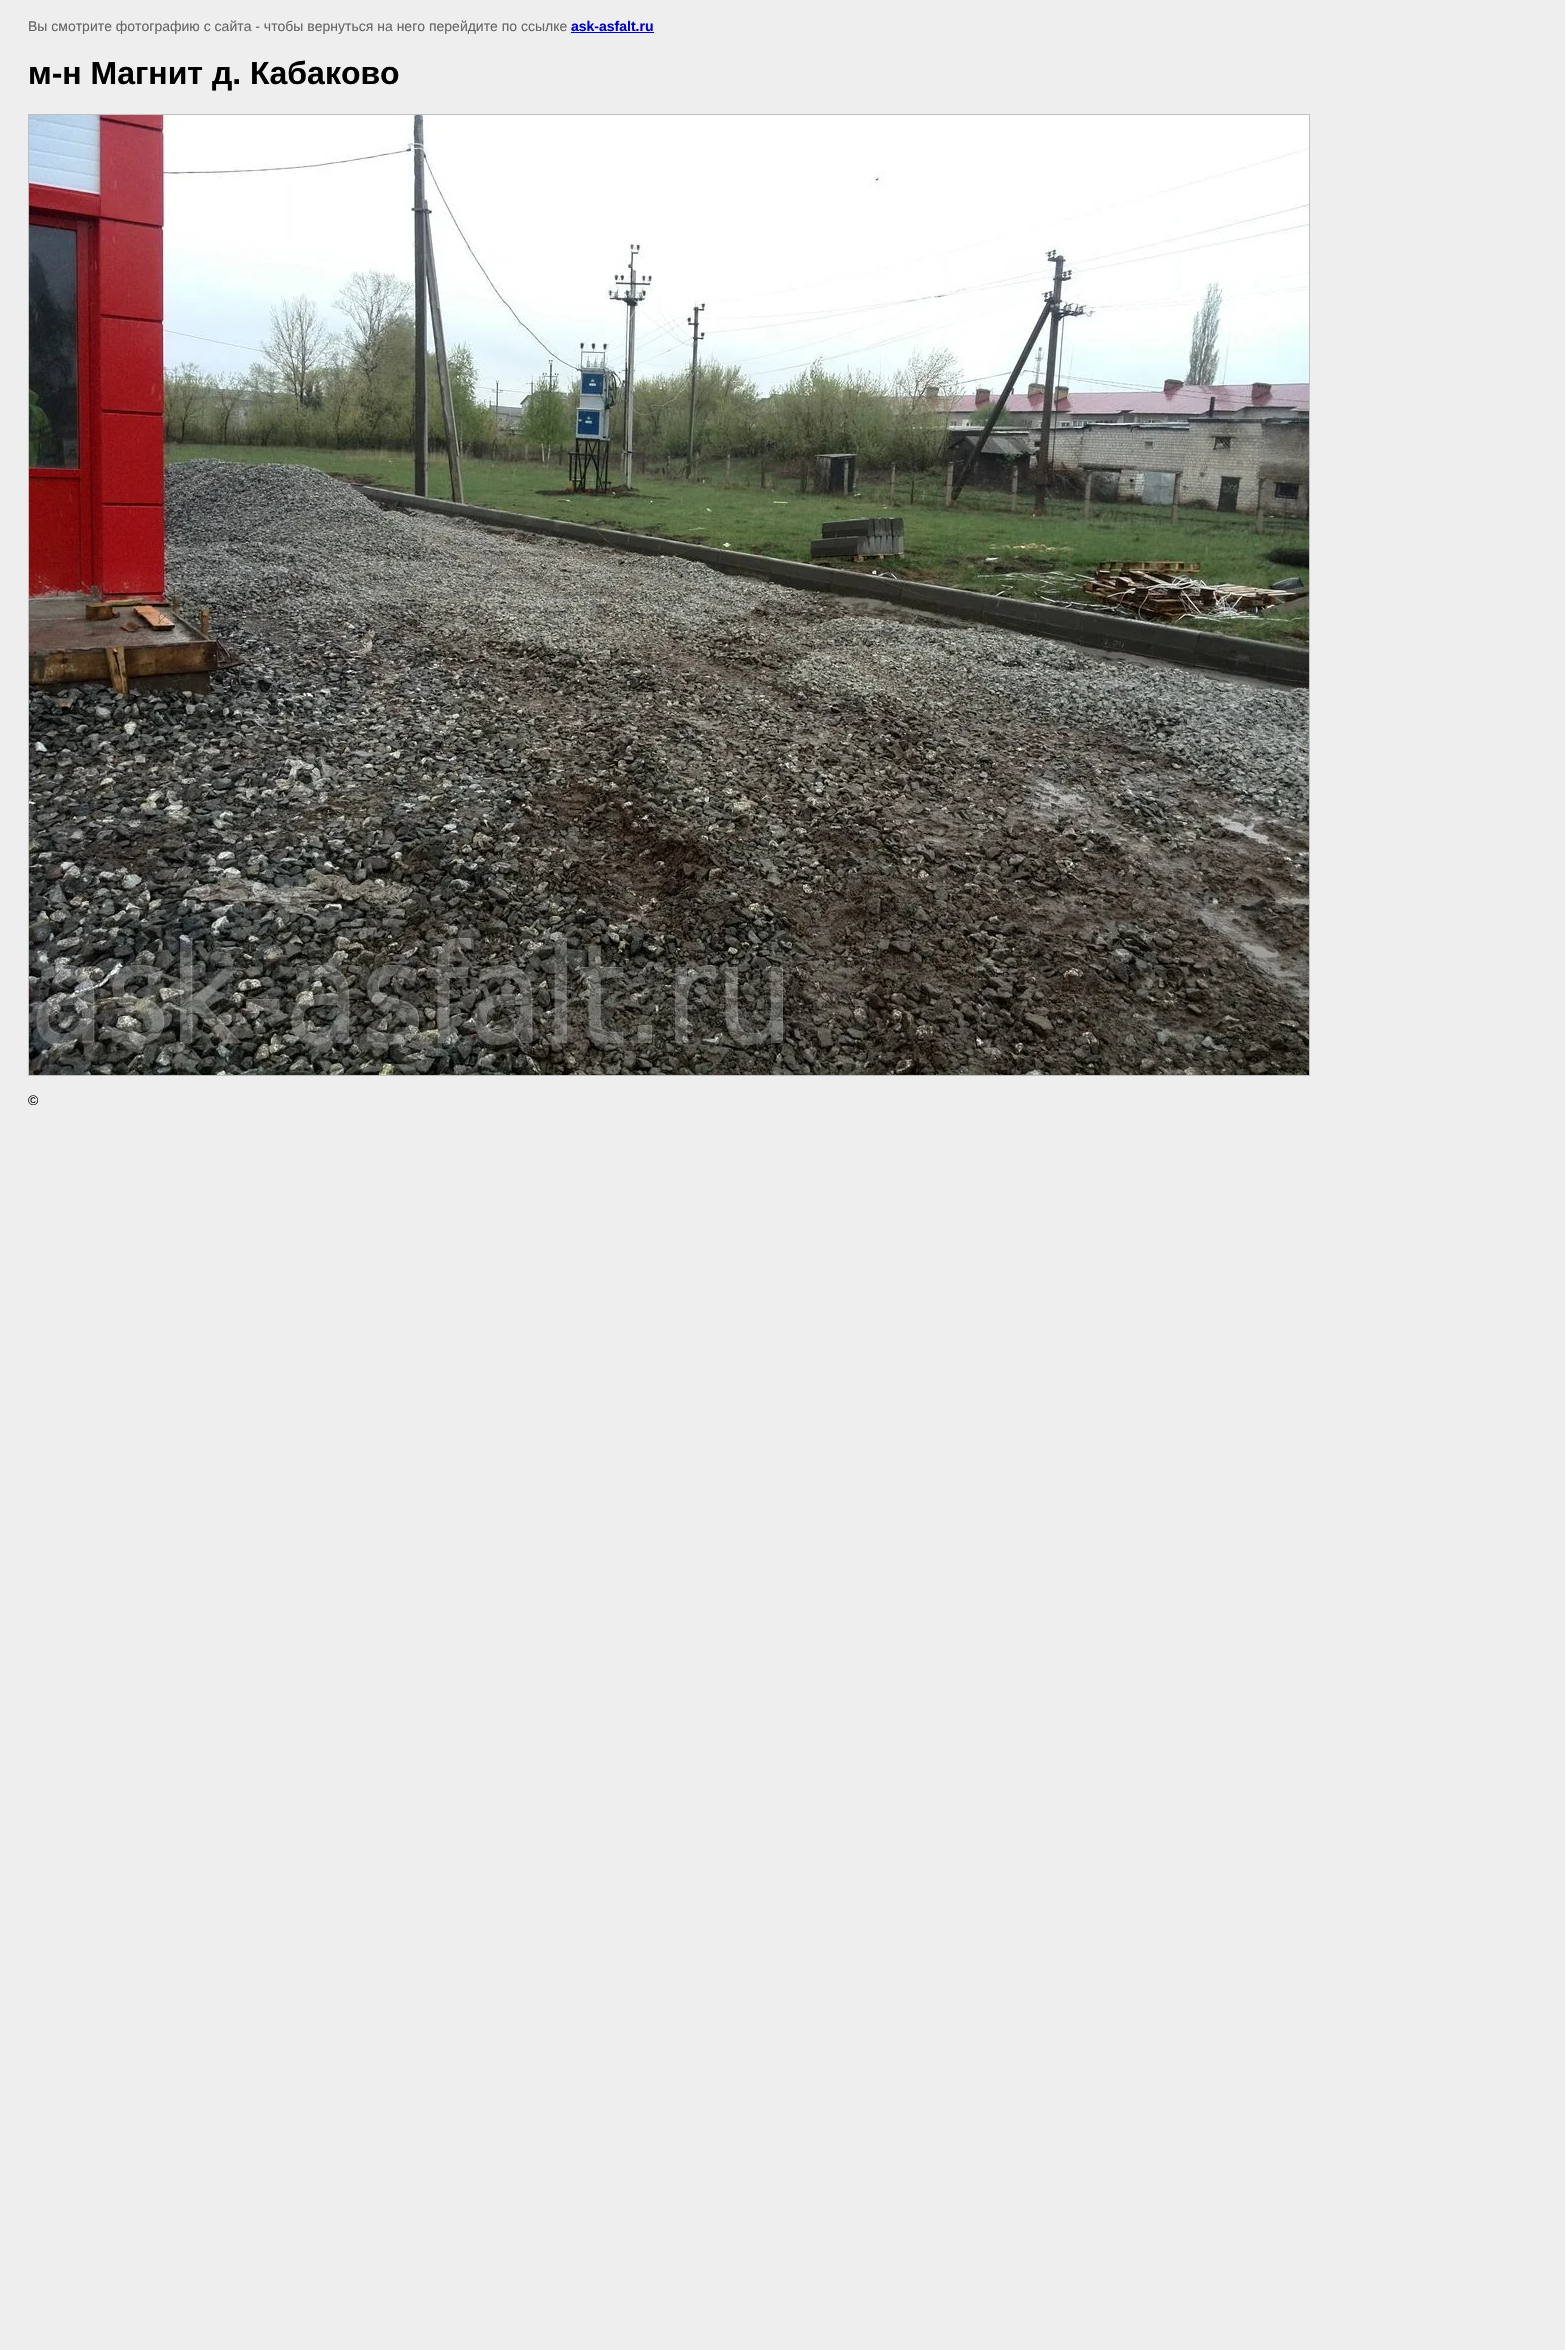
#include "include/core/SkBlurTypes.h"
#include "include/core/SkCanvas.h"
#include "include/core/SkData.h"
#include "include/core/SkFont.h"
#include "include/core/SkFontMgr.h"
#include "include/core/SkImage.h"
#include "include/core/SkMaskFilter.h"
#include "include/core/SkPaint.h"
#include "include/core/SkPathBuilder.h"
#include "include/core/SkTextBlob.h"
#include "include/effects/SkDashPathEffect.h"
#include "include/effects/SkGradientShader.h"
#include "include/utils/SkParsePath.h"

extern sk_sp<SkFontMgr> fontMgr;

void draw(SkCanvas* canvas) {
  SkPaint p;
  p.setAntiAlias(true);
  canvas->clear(SkColorSetRGB(238, 238, 238));
  p.setColor(SkColorSetRGB(0, 0, 204));
  canvas->drawRect(SkRect::MakeLTRB(571, 32, 654, 33), p);
  p.setStyle(SkPaint::kStroke_Style);
  p.setStrokeWidth(1);
  p.setColor(SkColorSetRGB(192, 192, 192));
  canvas->drawRect(SkRect::MakeLTRB(28.5f, 114.5f, 1309.5f, 1075.5f), p);
  canvas->drawImageRect(SkImages::DeferredFromEncodedData(SkData::MakeFromFileName("images/1.png")), SkRect::MakeLTRB(29, 115, 1309, 1075), SkSamplingOptions());
  SkFont font1(fontMgr->matchFamilyStyle("Liberation Sans", SkFontStyle::Normal()), 14);
  font1.setSubpixel(true);
  p.setStyle(SkPaint::kFill_Style);
  p.setColor(SkColorSetRGB(102, 102, 102));
  canvas->drawString("Вы смотрите фотографию с сайта - чтобы вернуться на него перейдите по ссылке", 28, 31, font1, p);
  SkFont font2(fontMgr->matchFamilyStyle("Liberation Sans", SkFontStyle::Bold()), 14);
  font2.setSubpixel(true);
  p.setColor(SkColorSetRGB(0, 0, 204));
  canvas->drawString("ask-asfalt.ru", 571, 31, font2, p);
  SkFont font3(fontMgr->matchFamilyStyle("Liberation Sans", SkFontStyle::Bold()), 32);
  font3.setSubpixel(true);
  p.setColor(SK_ColorBLACK);
  canvas->drawString("м-н Магнит д. Кабаково", 28, 84, font3, p);
  canvas->drawString("©", 28, 1105, font1, p);
}
